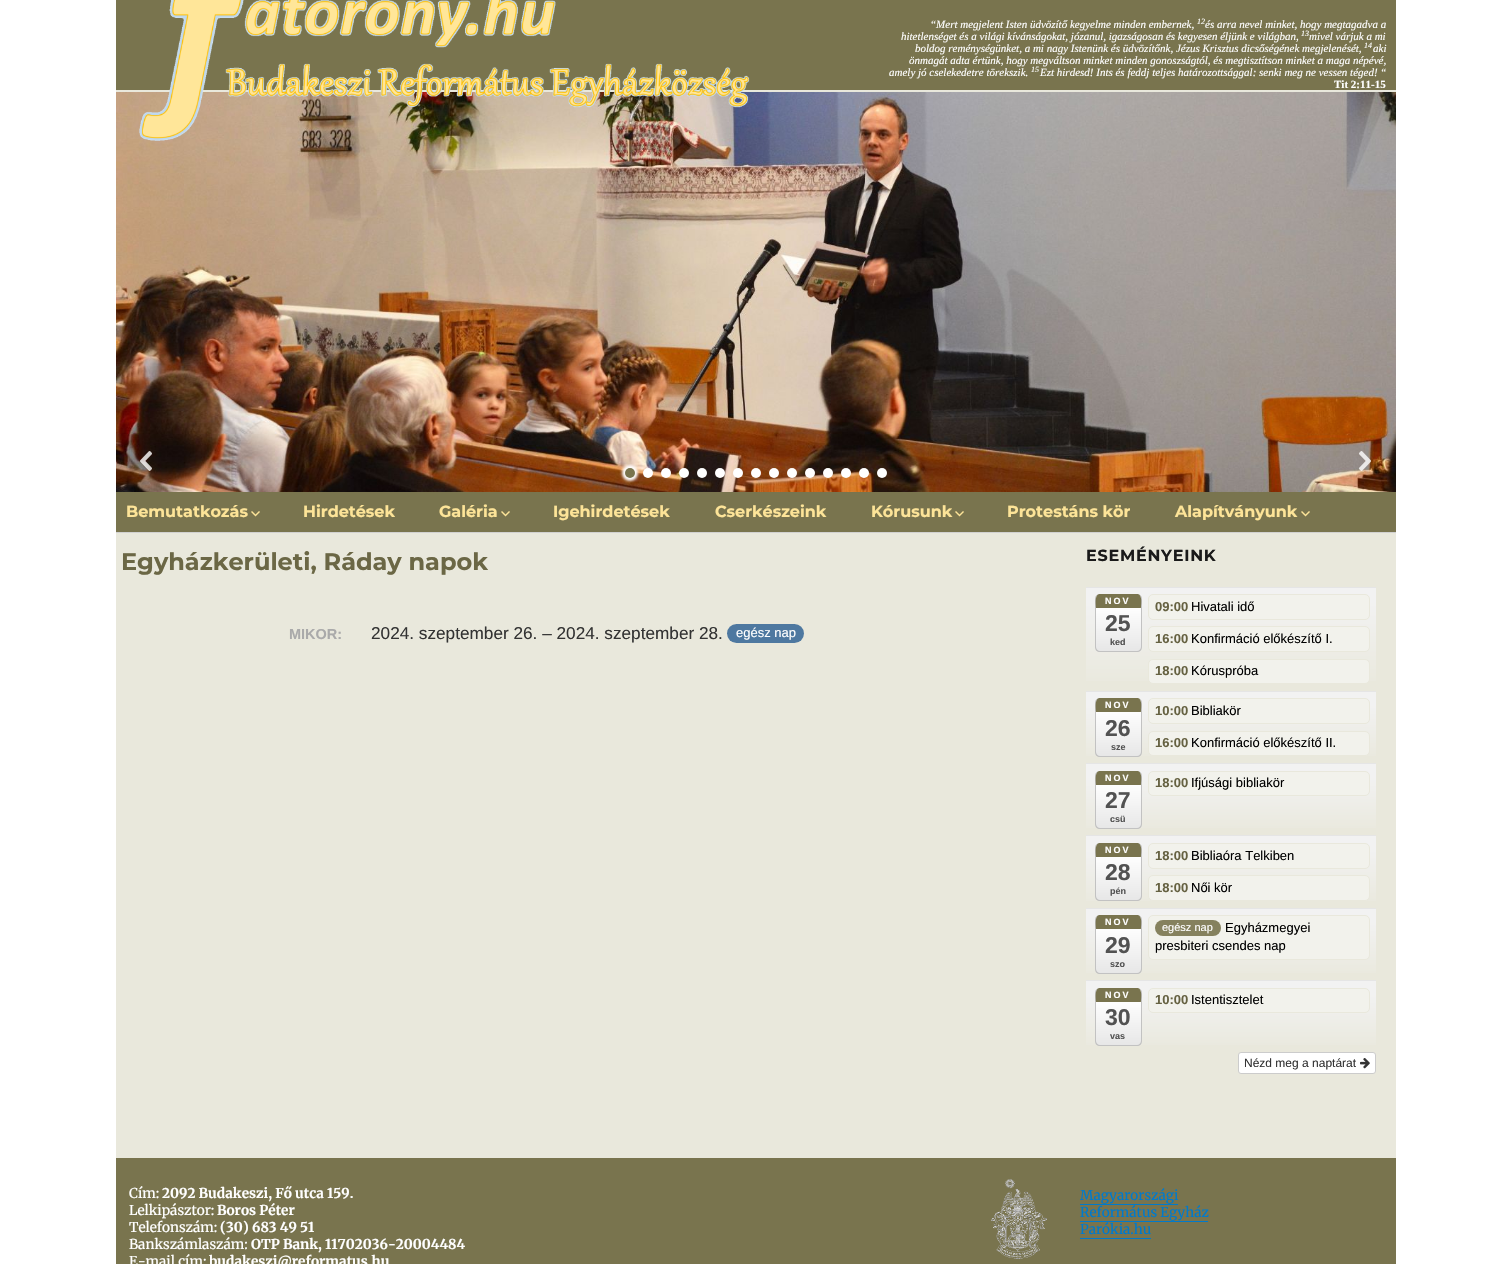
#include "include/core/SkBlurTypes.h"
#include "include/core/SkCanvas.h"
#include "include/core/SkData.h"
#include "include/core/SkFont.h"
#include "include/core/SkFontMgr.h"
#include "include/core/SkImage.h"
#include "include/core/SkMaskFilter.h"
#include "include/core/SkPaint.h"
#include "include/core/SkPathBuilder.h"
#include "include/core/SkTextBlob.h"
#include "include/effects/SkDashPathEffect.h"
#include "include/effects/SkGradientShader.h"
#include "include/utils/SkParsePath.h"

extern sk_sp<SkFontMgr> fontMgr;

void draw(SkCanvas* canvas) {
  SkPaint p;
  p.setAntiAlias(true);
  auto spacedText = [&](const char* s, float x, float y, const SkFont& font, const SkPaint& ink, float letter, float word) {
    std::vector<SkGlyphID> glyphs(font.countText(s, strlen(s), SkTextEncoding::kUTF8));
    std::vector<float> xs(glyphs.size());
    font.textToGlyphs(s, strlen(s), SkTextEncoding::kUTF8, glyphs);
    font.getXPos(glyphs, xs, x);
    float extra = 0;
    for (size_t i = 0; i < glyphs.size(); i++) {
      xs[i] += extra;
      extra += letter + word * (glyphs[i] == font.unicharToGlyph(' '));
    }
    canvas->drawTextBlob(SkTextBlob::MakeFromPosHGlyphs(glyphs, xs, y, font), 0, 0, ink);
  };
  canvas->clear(SK_ColorWHITE);
  p.setColor(SkColorSetRGB(233, 232, 220));
  canvas->drawRect(SkRect::MakeLTRB(116, 90, 1396, 1158), p);
  p.setColor(SkColorSetRGB(121, 116, 78));
  canvas->drawRect(SkRect::MakeLTRB(116, 0, 1396, 90), p);
  canvas->drawImageRect(SkImages::DeferredFromEncodedData(SkData::MakeFromFileName("images/2.png")), SkRect::MakeLTRB(116, 92, 1396, 492), SkSamplingOptions());
  canvas->drawImageRect(SkImages::DeferredFromEncodedData(SkData::MakeFromFileName("images/1.png")), SkRect::MakeLTRB(139, 0, 750, 141), SkSamplingOptions());
  canvas->drawImageRect(SkImages::DeferredFromEncodedData(SkData::MakeFromFileName("images/3.png")), SkRect::MakeLTRB(140, 451, 152, 471), SkSamplingOptions());
  p.setColor(SK_ColorWHITE);
  p.setMaskFilter(SkMaskFilter::MakeBlur(kNormal_SkBlurStyle, 1.5f));
  canvas->drawRoundRect(SkRect::MakeLTRB(622, 465, 638, 481), 8, 8, p);
  p.setMaskFilter(nullptr);
  p.setColor(SkColorSetRGB(121, 116, 78));
  canvas->drawCircle(630, 473, 5, p);
  p.setColor(SK_ColorWHITE);
  canvas->drawCircle(648, 473, 5, p);
  canvas->drawCircle(666, 473, 5, p);
  canvas->drawCircle(684, 473, 5, p);
  canvas->drawCircle(702, 473, 5, p);
  canvas->drawCircle(720, 473, 5, p);
  canvas->drawCircle(738, 473, 5, p);
  canvas->drawCircle(756, 473, 5, p);
  canvas->drawCircle(774, 473, 5, p);
  canvas->drawCircle(792, 473, 5, p);
  canvas->drawCircle(810, 473, 5, p);
  canvas->drawCircle(828, 473, 5, p);
  canvas->drawCircle(846, 473, 5, p);
  canvas->drawCircle(864, 473, 5, p);
  canvas->drawCircle(882, 473, 5, p);
  canvas->drawImageRect(SkImages::DeferredFromEncodedData(SkData::MakeFromFileName("images/4.png")), SkRect::MakeLTRB(1359, 451, 1371, 471), SkSamplingOptions());
  p.setColor(SkColorSetRGB(121, 116, 78));
  canvas->drawRect(SkRect::MakeLTRB(116, 492, 1396, 532), p);
  p.setColor(SkColorSetRGB(209, 209, 209));
  canvas->drawRect(SkRect::MakeLTRB(116, 532, 1396, 533), p);
  canvas->drawImageRect(SkImages::DeferredFromEncodedData(SkData::MakeFromFileName("images/5.png")), SkRect::MakeLTRB(251, 511, 260, 517), SkSamplingOptions());
  canvas->drawImageRect(SkImages::DeferredFromEncodedData(SkData::MakeFromFileName("images/5.png")), SkRect::MakeLTRB(501, 511, 510, 517), SkSamplingOptions());
  canvas->drawImageRect(SkImages::DeferredFromEncodedData(SkData::MakeFromFileName("images/5.png")), SkRect::MakeLTRB(955, 511, 964, 517), SkSamplingOptions());
  canvas->drawImageRect(SkImages::DeferredFromEncodedData(SkData::MakeFromFileName("images/5.png")), SkRect::MakeLTRB(1301, 511, 1310, 517), SkSamplingOptions());
  p.setColor(SkColorSetRGB(78, 120, 160));
  canvas->drawRoundRect(SkRect::MakeLTRB(727, 624, 804, 643), 9.5f, 9.5f, p);
  {
    const SkColor colors[] = {SkColorSetRGB(242, 242, 242), SkColorSetRGB(242, 242, 242), SkColorSetRGB(233, 232, 220)};
    const float stops[] = {0, 0.13f, 1};
    const SkPoint ends[] = {{1231, 588}, {1231, 691}};
    p.setShader(SkGradientShader::MakeLinear(ends, colors, stops, 3, SkTileMode::kClamp));
    p.setAlpha(255);
  }
  canvas->drawRect(SkRect::MakeLTRB(1086, 588, 1376, 681), p);
  p.setShader(nullptr);
  p.setColor(SkColorSetRGB(229, 229, 229));
  canvas->drawRect(SkRect::MakeLTRB(1086, 587, 1376, 588), p);
  canvas->save();
  canvas->clipPath(SkPathBuilder().moveTo(1100, 594).lineTo(1137, 594).cubicTo(1140, 594, 1142, 596, 1142, 599).lineTo(1142, 647).cubicTo(1142, 650, 1140, 652, 1137, 652).lineTo(1100, 652).cubicTo(1097, 652, 1095, 650, 1095, 647).lineTo(1095, 599).cubicTo(1095, 596, 1097, 594, 1100, 594).close().detach(), true);
  {
    const SkColor colors[] = {SK_ColorWHITE, SK_ColorWHITE, SkColorSetRGB(231, 231, 231)};
    const float stops[] = {0, 0.21f, 1};
    const SkPoint ends[] = {{1119, 594}, {1119, 651}};
    p.setShader(SkGradientShader::MakeLinear(ends, colors, stops, 3, SkTileMode::kClamp));
    p.setAlpha(255);
  }
  canvas->drawRect(SkRect::MakeLTRB(1096, 594, 1141, 651), p);
  canvas->restore();
  p.setShader(nullptr);
  p.setColor(SkColorSetRGB(194, 194, 194));
  canvas->drawPath(SkPathBuilder(SkPathFillType::kEvenOdd).moveTo(1100, 594).lineTo(1137, 594).cubicTo(1140, 594, 1142, 596, 1142, 599).lineTo(1142, 647).cubicTo(1142, 650, 1140, 652, 1137, 652).lineTo(1100, 652).cubicTo(1097, 652, 1095, 650, 1095, 647).lineTo(1095, 599).cubicTo(1095, 596, 1097, 594, 1100, 594).close().moveTo(1100, 594).lineTo(1137, 594).cubicTo(1139, 594, 1141, 596, 1141, 599).lineTo(1141, 647).cubicTo(1141, 649, 1139, 651, 1137, 651).lineTo(1100, 651).cubicTo(1098, 651, 1096, 649, 1096, 647).lineTo(1096, 599).cubicTo(1096, 596, 1098, 594, 1100, 594).close().detach(), p);
  p.setColor(SkColorSetRGB(121, 116, 78));
  canvas->drawPath(SkPathBuilder().moveTo(1100, 594).cubicTo(1094, 594, 1096, 605, 1096, 608).lineTo(1141, 608).cubicTo(1141, 605, 1143, 594, 1137, 594).close().detach(), p);
  p.setColor(SkColorSetRGB(242, 242, 236));
  canvas->drawRoundRect(SkRect::MakeLTRB(1148.5f, 594.5f, 1369.5f, 619.5f), 4.5f, 4.5f, p);
  p.setStyle(SkPaint::kStroke_Style);
  p.setStrokeWidth(1);
  p.setColor(SkColorSetRGB(233, 232, 220));
  canvas->drawRoundRect(SkRect::MakeLTRB(1148.5f, 594.5f, 1369.5f, 619.5f), 4.5f, 4.5f, p);
  p.setStyle(SkPaint::kFill_Style);
  p.setColor(SkColorSetRGB(242, 242, 236));
  canvas->drawRoundRect(SkRect::MakeLTRB(1148.5f, 626.5f, 1369.5f, 651.5f), 4.5f, 4.5f, p);
  p.setStyle(SkPaint::kStroke_Style);
  p.setColor(SkColorSetRGB(233, 232, 220));
  canvas->drawRoundRect(SkRect::MakeLTRB(1148.5f, 626.5f, 1369.5f, 651.5f), 4.5f, 4.5f, p);
  p.setStyle(SkPaint::kFill_Style);
  p.setColor(SkColorSetRGB(242, 242, 236));
  canvas->drawRoundRect(SkRect::MakeLTRB(1148.5f, 659.5f, 1369.5f, 683.5f), 4.5f, 4.5f, p);
  p.setStyle(SkPaint::kStroke_Style);
  p.setColor(SkColorSetRGB(233, 232, 220));
  canvas->drawRoundRect(SkRect::MakeLTRB(1148.5f, 659.5f, 1369.5f, 683.5f), 4.5f, 4.5f, p);
  p.setStyle(SkPaint::kFill_Style);
  {
    const SkColor colors[] = {SkColorSetRGB(242, 242, 242), SkColorSetRGB(242, 242, 242), SkColorSetRGB(233, 232, 220)};
    const float stops[] = {0, 0.18f, 1};
    const SkPoint ends[] = {{1231, 692}, {1231, 763}};
    p.setShader(SkGradientShader::MakeLinear(ends, colors, stops, 3, SkTileMode::kClamp));
    p.setAlpha(255);
  }
  canvas->drawRect(SkRect::MakeLTRB(1086, 692, 1376, 756), p);
  p.setShader(nullptr);
  p.setColor(SkColorSetRGB(229, 229, 229));
  canvas->drawRect(SkRect::MakeLTRB(1086, 691, 1376, 692), p);
  canvas->save();
  canvas->clipPath(SkPathBuilder().moveTo(1100, 698).lineTo(1137, 698).cubicTo(1140, 698, 1142, 700, 1142, 703).lineTo(1142, 752).cubicTo(1142, 755, 1140, 757, 1137, 757).lineTo(1100, 757).cubicTo(1097, 757, 1095, 755, 1095, 752).lineTo(1095, 703).cubicTo(1095, 700, 1097, 698, 1100, 698).close().detach(), true);
  {
    const SkColor colors[] = {SK_ColorWHITE, SK_ColorWHITE, SkColorSetRGB(231, 231, 231)};
    const float stops[] = {0, 0.2f, 1};
    const SkPoint ends[] = {{1119, 698}, {1119, 756}};
    p.setShader(SkGradientShader::MakeLinear(ends, colors, stops, 3, SkTileMode::kClamp));
    p.setAlpha(255);
  }
  canvas->drawRect(SkRect::MakeLTRB(1096, 698, 1141, 756), p);
  canvas->restore();
  p.setShader(nullptr);
  p.setColor(SkColorSetRGB(194, 194, 194));
  canvas->drawPath(SkPathBuilder(SkPathFillType::kEvenOdd).moveTo(1100, 698).lineTo(1137, 698).cubicTo(1140, 698, 1142, 700, 1142, 703).lineTo(1142, 752).cubicTo(1142, 755, 1140, 757, 1137, 757).lineTo(1100, 757).cubicTo(1097, 757, 1095, 755, 1095, 752).lineTo(1095, 703).cubicTo(1095, 700, 1097, 698, 1100, 698).close().moveTo(1100, 698).lineTo(1137, 698).cubicTo(1139, 698, 1141, 700, 1141, 703).lineTo(1141, 752).cubicTo(1141, 754, 1139, 756, 1137, 756).lineTo(1100, 756).cubicTo(1098, 756, 1096, 754, 1096, 752).lineTo(1096, 703).cubicTo(1096, 700, 1098, 698, 1100, 698).close().detach(), p);
  p.setColor(SkColorSetRGB(121, 116, 78));
  canvas->drawPath(SkPathBuilder().moveTo(1100, 698).cubicTo(1094, 698, 1096, 709, 1096, 712).lineTo(1141, 712).cubicTo(1141, 709, 1143, 698, 1137, 698).close().detach(), p);
  p.setColor(SkColorSetRGB(242, 242, 236));
  canvas->drawRoundRect(SkRect::MakeLTRB(1148.5f, 698.5f, 1369.5f, 723.5f), 4.5f, 4.5f, p);
  p.setStyle(SkPaint::kStroke_Style);
  p.setColor(SkColorSetRGB(233, 232, 220));
  canvas->drawRoundRect(SkRect::MakeLTRB(1148.5f, 698.5f, 1369.5f, 723.5f), 4.5f, 4.5f, p);
  p.setStyle(SkPaint::kFill_Style);
  p.setColor(SkColorSetRGB(242, 242, 236));
  canvas->drawRoundRect(SkRect::MakeLTRB(1148.5f, 731.5f, 1369.5f, 755.5f), 4.5f, 4.5f, p);
  p.setStyle(SkPaint::kStroke_Style);
  p.setColor(SkColorSetRGB(233, 232, 220));
  canvas->drawRoundRect(SkRect::MakeLTRB(1148.5f, 731.5f, 1369.5f, 755.5f), 4.5f, 4.5f, p);
  p.setStyle(SkPaint::kFill_Style);
  {
    const SkColor colors[] = {SkColorSetRGB(242, 242, 242), SkColorSetRGB(242, 242, 242), SkColorSetRGB(233, 232, 220)};
    const float stops[] = {0, 0.18f, 1};
    const SkPoint ends[] = {{1231, 764}, {1231, 835}};
    p.setShader(SkGradientShader::MakeLinear(ends, colors, stops, 3, SkTileMode::kClamp));
    p.setAlpha(255);
  }
  canvas->drawRect(SkRect::MakeLTRB(1086, 764, 1376, 828), p);
  p.setShader(nullptr);
  p.setColor(SkColorSetRGB(229, 229, 229));
  canvas->drawRect(SkRect::MakeLTRB(1086, 763, 1376, 764), p);
  canvas->save();
  canvas->clipPath(SkPathBuilder().moveTo(1100, 771).lineTo(1137, 771).cubicTo(1140, 771, 1142, 773, 1142, 776).lineTo(1142, 824).cubicTo(1142, 827, 1140, 829, 1137, 829).lineTo(1100, 829).cubicTo(1097, 829, 1095, 827, 1095, 824).lineTo(1095, 776).cubicTo(1095, 773, 1097, 771, 1100, 771).close().detach(), true);
  {
    const SkColor colors[] = {SK_ColorWHITE, SK_ColorWHITE, SkColorSetRGB(231, 231, 231)};
    const float stops[] = {0, 0.21f, 1};
    const SkPoint ends[] = {{1119, 771}, {1119, 828}};
    p.setShader(SkGradientShader::MakeLinear(ends, colors, stops, 3, SkTileMode::kClamp));
    p.setAlpha(255);
  }
  canvas->drawRect(SkRect::MakeLTRB(1096, 771, 1141, 828), p);
  canvas->restore();
  p.setShader(nullptr);
  p.setColor(SkColorSetRGB(194, 194, 194));
  canvas->drawPath(SkPathBuilder(SkPathFillType::kEvenOdd).moveTo(1100, 771).lineTo(1137, 771).cubicTo(1140, 771, 1142, 773, 1142, 776).lineTo(1142, 824).cubicTo(1142, 827, 1140, 829, 1137, 829).lineTo(1100, 829).cubicTo(1097, 829, 1095, 827, 1095, 824).lineTo(1095, 776).cubicTo(1095, 773, 1097, 771, 1100, 771).close().moveTo(1100, 771).lineTo(1137, 771).cubicTo(1139, 771, 1141, 773, 1141, 776).lineTo(1141, 824).cubicTo(1141, 826, 1139, 828, 1137, 828).lineTo(1100, 828).cubicTo(1098, 828, 1096, 826, 1096, 824).lineTo(1096, 776).cubicTo(1096, 773, 1098, 771, 1100, 771).close().detach(), p);
  p.setColor(SkColorSetRGB(121, 116, 78));
  canvas->drawPath(SkPathBuilder().moveTo(1100, 771).cubicTo(1094, 771, 1096, 782, 1096, 785).lineTo(1141, 785).cubicTo(1141, 782, 1143, 771, 1137, 771).close().detach(), p);
  p.setColor(SkColorSetRGB(242, 242, 236));
  canvas->drawRoundRect(SkRect::MakeLTRB(1148.5f, 771.5f, 1369.5f, 795.5f), 4.5f, 4.5f, p);
  p.setStyle(SkPaint::kStroke_Style);
  p.setColor(SkColorSetRGB(233, 232, 220));
  canvas->drawRoundRect(SkRect::MakeLTRB(1148.5f, 771.5f, 1369.5f, 795.5f), 4.5f, 4.5f, p);
  p.setStyle(SkPaint::kFill_Style);
  {
    const SkColor colors[] = {SkColorSetRGB(242, 242, 242), SkColorSetRGB(242, 242, 242), SkColorSetRGB(233, 232, 220)};
    const float stops[] = {0, 0.18f, 1};
    const SkPoint ends[] = {{1231, 836}, {1231, 908}};
    p.setShader(SkGradientShader::MakeLinear(ends, colors, stops, 3, SkTileMode::kClamp));
    p.setAlpha(255);
  }
  canvas->drawRect(SkRect::MakeLTRB(1086, 836, 1376, 901), p);
  p.setShader(nullptr);
  p.setColor(SkColorSetRGB(229, 229, 229));
  canvas->drawRect(SkRect::MakeLTRB(1086, 835, 1376, 836), p);
  canvas->save();
  canvas->clipPath(SkPathBuilder().moveTo(1100, 843).lineTo(1137, 843).cubicTo(1140, 843, 1142, 845, 1142, 848).lineTo(1142, 896).cubicTo(1142, 899, 1140, 901, 1137, 901).lineTo(1100, 901).cubicTo(1097, 901, 1095, 899, 1095, 896).lineTo(1095, 848).cubicTo(1095, 845, 1097, 843, 1100, 843).close().detach(), true);
  {
    const SkColor colors[] = {SK_ColorWHITE, SK_ColorWHITE, SkColorSetRGB(231, 231, 231)};
    const float stops[] = {0, 0.21f, 1};
    const SkPoint ends[] = {{1119, 843}, {1119, 900}};
    p.setShader(SkGradientShader::MakeLinear(ends, colors, stops, 3, SkTileMode::kClamp));
    p.setAlpha(255);
  }
  canvas->drawRect(SkRect::MakeLTRB(1096, 843, 1141, 900), p);
  canvas->restore();
  p.setShader(nullptr);
  p.setColor(SkColorSetRGB(194, 194, 194));
  canvas->drawPath(SkPathBuilder(SkPathFillType::kEvenOdd).moveTo(1100, 843).lineTo(1137, 843).cubicTo(1140, 843, 1142, 845, 1142, 848).lineTo(1142, 896).cubicTo(1142, 899, 1140, 901, 1137, 901).lineTo(1100, 901).cubicTo(1097, 901, 1095, 899, 1095, 896).lineTo(1095, 848).cubicTo(1095, 845, 1097, 843, 1100, 843).close().moveTo(1100, 843).lineTo(1137, 843).cubicTo(1139, 843, 1141, 845, 1141, 848).lineTo(1141, 896).cubicTo(1141, 898, 1139, 900, 1137, 900).lineTo(1100, 900).cubicTo(1098, 900, 1096, 898, 1096, 896).lineTo(1096, 848).cubicTo(1096, 845, 1098, 843, 1100, 843).close().detach(), p);
  p.setColor(SkColorSetRGB(121, 116, 78));
  canvas->drawPath(SkPathBuilder().moveTo(1100, 843).cubicTo(1094, 843, 1096, 854, 1096, 857).lineTo(1141, 857).cubicTo(1141, 854, 1143, 843, 1137, 843).close().detach(), p);
  p.setColor(SkColorSetRGB(242, 242, 236));
  canvas->drawRoundRect(SkRect::MakeLTRB(1148.5f, 843.5f, 1369.5f, 868.5f), 4.5f, 4.5f, p);
  p.setStyle(SkPaint::kStroke_Style);
  p.setColor(SkColorSetRGB(233, 232, 220));
  canvas->drawRoundRect(SkRect::MakeLTRB(1148.5f, 843.5f, 1369.5f, 868.5f), 4.5f, 4.5f, p);
  p.setStyle(SkPaint::kFill_Style);
  p.setColor(SkColorSetRGB(242, 242, 236));
  canvas->drawRoundRect(SkRect::MakeLTRB(1148.5f, 875.5f, 1369.5f, 900.5f), 4.5f, 4.5f, p);
  p.setStyle(SkPaint::kStroke_Style);
  p.setColor(SkColorSetRGB(233, 232, 220));
  canvas->drawRoundRect(SkRect::MakeLTRB(1148.5f, 875.5f, 1369.5f, 900.5f), 4.5f, 4.5f, p);
  p.setStyle(SkPaint::kFill_Style);
  {
    const SkColor colors[] = {SkColorSetRGB(242, 242, 242), SkColorSetRGB(242, 242, 242), SkColorSetRGB(233, 232, 220)};
    const float stops[] = {0, 0.18f, 1};
    const SkPoint ends[] = {{1231, 909}, {1231, 980}};
    p.setShader(SkGradientShader::MakeLinear(ends, colors, stops, 3, SkTileMode::kClamp));
    p.setAlpha(255);
  }
  canvas->drawRect(SkRect::MakeLTRB(1086, 909, 1376, 973), p);
  p.setShader(nullptr);
  p.setColor(SkColorSetRGB(229, 229, 229));
  canvas->drawRect(SkRect::MakeLTRB(1086, 908, 1376, 909), p);
  canvas->save();
  canvas->clipPath(SkPathBuilder().moveTo(1100, 915).lineTo(1137, 915).cubicTo(1140, 915, 1142, 917, 1142, 920).lineTo(1142, 969).cubicTo(1142, 972, 1140, 974, 1137, 974).lineTo(1100, 974).cubicTo(1097, 974, 1095, 972, 1095, 969).lineTo(1095, 920).cubicTo(1095, 917, 1097, 915, 1100, 915).close().detach(), true);
  {
    const SkColor colors[] = {SK_ColorWHITE, SK_ColorWHITE, SkColorSetRGB(231, 231, 231)};
    const float stops[] = {0, 0.2f, 1};
    const SkPoint ends[] = {{1119, 915}, {1119, 973}};
    p.setShader(SkGradientShader::MakeLinear(ends, colors, stops, 3, SkTileMode::kClamp));
    p.setAlpha(255);
  }
  canvas->drawRect(SkRect::MakeLTRB(1096, 915, 1141, 973), p);
  canvas->restore();
  p.setShader(nullptr);
  p.setColor(SkColorSetRGB(194, 194, 194));
  canvas->drawPath(SkPathBuilder(SkPathFillType::kEvenOdd).moveTo(1100, 915).lineTo(1137, 915).cubicTo(1140, 915, 1142, 917, 1142, 920).lineTo(1142, 969).cubicTo(1142, 972, 1140, 974, 1137, 974).lineTo(1100, 974).cubicTo(1097, 974, 1095, 972, 1095, 969).lineTo(1095, 920).cubicTo(1095, 917, 1097, 915, 1100, 915).close().moveTo(1100, 915).lineTo(1137, 915).cubicTo(1139, 915, 1141, 917, 1141, 920).lineTo(1141, 969).cubicTo(1141, 971, 1139, 973, 1137, 973).lineTo(1100, 973).cubicTo(1098, 973, 1096, 971, 1096, 969).lineTo(1096, 920).cubicTo(1096, 917, 1098, 915, 1100, 915).close().detach(), p);
  p.setColor(SkColorSetRGB(121, 116, 78));
  canvas->drawPath(SkPathBuilder().moveTo(1100, 915).cubicTo(1094, 915, 1096, 926, 1096, 929).lineTo(1141, 929).cubicTo(1141, 926, 1143, 915, 1137, 915).close().detach(), p);
  p.setColor(SkColorSetRGB(242, 242, 236));
  canvas->drawRoundRect(SkRect::MakeLTRB(1148.5f, 915.5f, 1369.5f, 959.5f), 4.5f, 4.5f, p);
  p.setStyle(SkPaint::kStroke_Style);
  p.setColor(SkColorSetRGB(233, 232, 220));
  canvas->drawRoundRect(SkRect::MakeLTRB(1148.5f, 915.5f, 1369.5f, 959.5f), 4.5f, 4.5f, p);
  p.setStyle(SkPaint::kFill_Style);
  p.setColor(SkColorSetRGB(133, 129, 94));
  canvas->drawRoundRect(SkRect::MakeLTRB(1155, 920, 1221, 936), 8, 8, p);
  {
    const SkColor colors[] = {SkColorSetRGB(242, 242, 242), SkColorSetRGB(242, 242, 242), SkColorSetRGB(233, 232, 220)};
    const float stops[] = {0, 0.18f, 1};
    const SkPoint ends[] = {{1231, 981}, {1231, 1052}};
    p.setShader(SkGradientShader::MakeLinear(ends, colors, stops, 3, SkTileMode::kClamp));
    p.setAlpha(255);
  }
  canvas->drawRect(SkRect::MakeLTRB(1086, 981, 1376, 1045), p);
  p.setShader(nullptr);
  p.setColor(SkColorSetRGB(229, 229, 229));
  canvas->drawRect(SkRect::MakeLTRB(1086, 980, 1376, 981), p);
  canvas->save();
  canvas->clipPath(SkPathBuilder().moveTo(1100, 988).lineTo(1137, 988).cubicTo(1140, 988, 1142, 990, 1142, 993).lineTo(1142, 1041).cubicTo(1142, 1044, 1140, 1046, 1137, 1046).lineTo(1100, 1046).cubicTo(1097, 1046, 1095, 1044, 1095, 1041).lineTo(1095, 993).cubicTo(1095, 990, 1097, 988, 1100, 988).close().detach(), true);
  {
    const SkColor colors[] = {SK_ColorWHITE, SK_ColorWHITE, SkColorSetRGB(231, 231, 231)};
    const float stops[] = {0, 0.21f, 1};
    const SkPoint ends[] = {{1119, 988}, {1119, 1045}};
    p.setShader(SkGradientShader::MakeLinear(ends, colors, stops, 3, SkTileMode::kClamp));
    p.setAlpha(255);
  }
  canvas->drawRect(SkRect::MakeLTRB(1096, 988, 1141, 1045), p);
  canvas->restore();
  p.setShader(nullptr);
  p.setColor(SkColorSetRGB(194, 194, 194));
  canvas->drawPath(SkPathBuilder(SkPathFillType::kEvenOdd).moveTo(1100, 988).lineTo(1137, 988).cubicTo(1140, 988, 1142, 990, 1142, 993).lineTo(1142, 1041).cubicTo(1142, 1044, 1140, 1046, 1137, 1046).lineTo(1100, 1046).cubicTo(1097, 1046, 1095, 1044, 1095, 1041).lineTo(1095, 993).cubicTo(1095, 990, 1097, 988, 1100, 988).close().moveTo(1100, 988).lineTo(1137, 988).cubicTo(1139, 988, 1141, 990, 1141, 993).lineTo(1141, 1041).cubicTo(1141, 1043, 1139, 1045, 1137, 1045).lineTo(1100, 1045).cubicTo(1098, 1045, 1096, 1043, 1096, 1041).lineTo(1096, 993).cubicTo(1096, 990, 1098, 988, 1100, 988).close().detach(), p);
  p.setColor(SkColorSetRGB(121, 116, 78));
  canvas->drawPath(SkPathBuilder().moveTo(1100, 988).cubicTo(1094, 988, 1096, 999, 1096, 1002).lineTo(1141, 1002).cubicTo(1141, 999, 1143, 988, 1137, 988).close().detach(), p);
  p.setColor(SkColorSetRGB(242, 242, 236));
  canvas->drawRoundRect(SkRect::MakeLTRB(1148.5f, 988.5f, 1369.5f, 1012.5f), 4.5f, 4.5f, p);
  p.setStyle(SkPaint::kStroke_Style);
  p.setColor(SkColorSetRGB(233, 232, 220));
  canvas->drawRoundRect(SkRect::MakeLTRB(1148.5f, 988.5f, 1369.5f, 1012.5f), 4.5f, 4.5f, p);
  p.setStyle(SkPaint::kFill_Style);
  p.setColor(SK_ColorWHITE);
  canvas->drawRoundRect(SkRect::MakeLTRB(1238.5f, 1052.5f, 1375.5f, 1073.5f), 2.5f, 2.5f, p);
  p.setStyle(SkPaint::kStroke_Style);
  p.setColor(SkColorSetRGB(204, 204, 204));
  canvas->drawRoundRect(SkRect::MakeLTRB(1238.5f, 1052.5f, 1375.5f, 1073.5f), 2.5f, 2.5f, p);
  canvas->drawImageRect(SkImages::DeferredFromEncodedData(SkData::MakeFromFileName("images/6.png")), SkRect::MakeLTRB(1360, 1058, 1370, 1069), SkSamplingOptions());
  p.setStyle(SkPaint::kFill_Style);
  p.setColor(SkColorSetRGB(121, 116, 78));
  canvas->drawRect(SkRect::MakeLTRB(116, 1158, 1396, 1264), p);
  canvas->drawImageRect(SkImages::DeferredFromEncodedData(SkData::MakeFromFileName("images/7.png")), SkRect::MakeLTRB(991, 1179, 1047, 1259), SkSamplingOptions());
  p.setColor(SkColorSetRGB(0, 122, 204));
  canvas->drawRect(SkRect::MakeLTRB(1080, 1204, 1178, 1205), p);
  canvas->drawRect(SkRect::MakeLTRB(1080, 1221, 1208, 1222), p);
  canvas->drawRect(SkRect::MakeLTRB(1080, 1238, 1151, 1239), p);
  SkFont font1(fontMgr->matchFamilyStyle("Liberation Serif", SkFontStyle::Italic()), 11);
  font1.setSubpixel(true);
  p.setColor(SK_ColorWHITE);
  canvas->drawString("“Mert megjelent Isten üdvözítő kegyelme minden embernek,", 930, 28, font1, p);
  SkFont font2(fontMgr->matchFamilyStyle("Liberation Serif", SkFontStyle::Italic()), 8);
  font2.setSubpixel(true);
  canvas->drawString("12", 1197, 24, font2, p);
  canvas->drawString("és arra nevel minket, hogy megtagadva a", 1205, 28, font1, p);
  canvas->drawString("hitetlenséget és a világi kívánságokat, józanul, igazságosan és kegyesen éljünk e világban,", 901, 40, font1, p);
  canvas->drawString("mivel várjuk a mi", 1309, 40, font1, p);
  canvas->drawString("13", 1301, 36, font2, p);
  canvas->drawString("boldog reménységünket, a mi nagy Istenünk és üdvözítőnk, Jézus Krisztus dicsőségének megjelenését,", 915, 52, font1, p);
  canvas->drawString("aki", 1373, 52, font1, p);
  canvas->drawString("14", 1364, 48, font2, p);
  canvas->drawString("önmagát adta értünk, hogy megváltson minket minden gonoszságtól, és megtisztítson minket a maga népévé,", 909, 64, font1, p);
  canvas->drawString("amely jó cselekedetre törekszik.", 889, 76, font1, p);
  canvas->drawString("Ezt hirdesd! Ints és feddj teljes határozottsággal: senki meg ne vessen téged! “", 1040, 76, font1, p);
  canvas->drawString("15", 1031, 72, font2, p);
  SkFont font3(fontMgr->matchFamilyStyle("Liberation Serif", SkFontStyle::Bold()), 11);
  font3.setSubpixel(true);
  canvas->drawString("Tit 2:11-15", 1334, 88, font3, p);
  SkFont font4(fontMgr->matchFamilyStyle("Montserrat", SkFontStyle::Bold()), 16);
  font4.setSubpixel(true);
  p.setColor(SkColorSetRGB(253, 228, 152));
  canvas->drawString("Bemutatkozás", 126, 517, font4, p);
  canvas->drawString("Hirdetések", 303, 517, font4, p);
  canvas->drawString("Galéria", 439, 517, font4, p);
  canvas->drawString("Igehirdetések", 553, 517, font4, p);
  canvas->drawString("Cserkészeink", 715, 517, font4, p);
  canvas->drawString("Kórusunk", 871, 517, font4, p);
  canvas->drawString("Protestáns kör", 1007, 517, font4, p);
  canvas->drawString("Alapítványunk", 1175, 517, font4, p);
  SkFont font5(fontMgr->matchFamilyStyle("Montserrat", SkFontStyle::Bold()), 24);
  font5.setSubpixel(true);
  p.setColor(SkColorSetRGB(107, 103, 69));
  canvas->drawString("Egyházkerületi, Ráday napok", 121, 570, font5, p);
  SkFont font6(fontMgr->matchFamilyStyle("Liberation Sans", SkFontStyle::Bold()), 14.5f);
  font6.setSubpixel(true);
  p.setColor(SkColorSetRGB(170, 170, 170));
  canvas->drawString("MIKOR:", 289, 639, font6, p);
  SkFont font7(fontMgr->matchFamilyStyle("Liberation Sans", SkFontStyle::Normal()), 17.2f);
  font7.setSubpixel(true);
  p.setColor(SkColorSetRGB(51, 51, 51));
  canvas->drawString("2024. szeptember 26. – 2024. szeptember 28.", 371, 639, font7, p);
  SkFont font8(fontMgr->matchFamilyStyle("Liberation Sans", SkFontStyle::Normal()), 13);
  font8.setSubpixel(true);
  p.setColor(SK_ColorWHITE);
  canvas->drawString("egész nap", 736, 637, font8, p);
  p.setColor(SkColorSetRGB(26, 26, 26));
  spacedText("ESEMÉNYEINK", 1086, 561, font4, p, 0.75f, 0);
  SkFont font9(fontMgr->matchFamilyStyle("Liberation Sans", SkFontStyle::Bold()), 9);
  font9.setSubpixel(true);
  p.setColor(SK_ColorWHITE);
  spacedText("NOV", 1105, 604, font9, p, 2, 0);
  SkFont font10(fontMgr->matchFamilyStyle("Liberation Sans", SkFontStyle::Bold()), 23);
  font10.setSubpixel(true);
  p.setColor(SkColorSetRGB(82, 82, 82));
  canvas->drawString("25", 1105, 631, font10, p);
  canvas->drawString("ked", 1110, 645, font9, p);
  SkFont font11(fontMgr->matchFamilyStyle("Liberation Sans", SkFontStyle::Bold()), 13);
  font11.setSubpixel(true);
  p.setColor(SkColorSetRGB(101, 97, 65));
  canvas->drawString("09:00", 1155, 611, font11, p);
  p.setColor(SK_ColorBLACK);
  canvas->drawString("Hivatali idő", 1191, 611, font8, p);
  p.setColor(SkColorSetRGB(101, 97, 65));
  canvas->drawString("16:00", 1155, 643, font11, p);
  p.setColor(SK_ColorBLACK);
  canvas->drawString("Konfirmáció előkészítő I.", 1191, 643, font8, p);
  p.setColor(SkColorSetRGB(101, 97, 65));
  canvas->drawString("18:00", 1155, 675, font11, p);
  p.setColor(SK_ColorBLACK);
  canvas->drawString("Kóruspróba", 1191, 675, font8, p);
  p.setColor(SK_ColorWHITE);
  spacedText("NOV", 1105, 708, font9, p, 2, 0);
  p.setColor(SkColorSetRGB(82, 82, 82));
  canvas->drawString("26", 1105, 736, font10, p);
  canvas->drawString("sze", 1111, 750, font9, p);
  p.setColor(SkColorSetRGB(101, 97, 65));
  canvas->drawString("10:00", 1155, 715, font11, p);
  p.setColor(SK_ColorBLACK);
  canvas->drawString("Bibliakör", 1191, 715, font8, p);
  p.setColor(SkColorSetRGB(101, 97, 65));
  canvas->drawString("16:00", 1155, 747, font11, p);
  p.setColor(SK_ColorBLACK);
  canvas->drawString("Konfirmáció előkészítő II.", 1191, 747, font8, p);
  p.setColor(SK_ColorWHITE);
  spacedText("NOV", 1105, 781, font9, p, 2, 0);
  p.setColor(SkColorSetRGB(82, 82, 82));
  canvas->drawString("27", 1105, 808, font10, p);
  canvas->drawString("csü", 1110, 822, font9, p);
  p.setColor(SkColorSetRGB(101, 97, 65));
  canvas->drawString("18:00", 1155, 787, font11, p);
  p.setColor(SK_ColorBLACK);
  canvas->drawString("Ifjúsági bibliakör", 1191, 787, font8, p);
  p.setColor(SK_ColorWHITE);
  spacedText("NOV", 1105, 853, font9, p, 2, 0);
  p.setColor(SkColorSetRGB(82, 82, 82));
  canvas->drawString("28", 1105, 880, font10, p);
  canvas->drawString("pén", 1110, 894, font9, p);
  p.setColor(SkColorSetRGB(101, 97, 65));
  canvas->drawString("18:00", 1155, 860, font11, p);
  p.setColor(SK_ColorBLACK);
  canvas->drawString("Bibliaóra Telkiben", 1191, 860, font8, p);
  p.setColor(SkColorSetRGB(101, 97, 65));
  canvas->drawString("18:00", 1155, 892, font11, p);
  p.setColor(SK_ColorBLACK);
  canvas->drawString("Női kör", 1191, 892, font8, p);
  p.setColor(SK_ColorWHITE);
  spacedText("NOV", 1105, 925, font9, p, 2, 0);
  p.setColor(SkColorSetRGB(82, 82, 82));
  canvas->drawString("29", 1105, 953, font10, p);
  canvas->drawString("szo", 1110, 967, font9, p);
  SkFont font12(fontMgr->matchFamilyStyle("Liberation Sans", SkFontStyle::Normal()), 11);
  font12.setSubpixel(true);
  p.setColor(SK_ColorWHITE);
  canvas->drawString("egész nap", 1162, 931, font12, p);
  p.setColor(SK_ColorBLACK);
  canvas->drawString("Egyházmegyei", 1225, 932, font8, p);
  canvas->drawString("presbiteri csendes nap", 1155, 950, font8, p);
  p.setColor(SK_ColorWHITE);
  spacedText("NOV", 1105, 998, font9, p, 2, 0);
  p.setColor(SkColorSetRGB(82, 82, 82));
  canvas->drawString("30", 1105, 1025, font10, p);
  canvas->drawString("vas", 1110, 1039, font9, p);
  p.setColor(SkColorSetRGB(101, 97, 65));
  canvas->drawString("10:00", 1155, 1004, font11, p);
  p.setColor(SK_ColorBLACK);
  canvas->drawString("Istentisztelet", 1191, 1004, font8, p);
  SkFont font13(fontMgr->matchFamilyStyle("Liberation Sans", SkFontStyle::Normal()), 12);
  font13.setSubpixel(true);
  p.setColor(SkColorSetRGB(51, 51, 51));
  canvas->drawString("Nézd meg a naptárat", 1244, 1067, font13, p);
  SkFont font14(fontMgr->matchFamilyStyle("Merriweather", SkFontStyle::Normal()), 13.6f);
  font14.setSubpixel(true);
  p.setColor(SK_ColorWHITE);
  canvas->drawString("Cím:", 129, 1198, font14, p);
  SkFont font15(fontMgr->matchFamilyStyle("Merriweather", SkFontStyle::Bold()), 13.6f);
  font15.setSubpixel(true);
  canvas->drawString("2092 Budakeszi, Fő utca 159.", 162, 1198, font15, p);
  canvas->drawString("Lelkipásztor:", 129, 1215, font14, p);
  canvas->drawString("Boros Péter", 217, 1215, font15, p);
  canvas->drawString("Telefonszám:", 129, 1232, font14, p);
  canvas->drawString("(30) 683 49 51", 220, 1232, font15, p);
  canvas->drawString("Bankszámlaszám:", 129, 1249, font14, p);
  canvas->drawString("OTP Bank, 11702036-20004484", 251, 1249, font15, p);
  canvas->drawString("E-mail cím:", 129, 1266, font14, p);
  canvas->drawString("budakeszi@reformatus.hu", 209, 1266, font15, p);
  p.setColor(SkColorSetRGB(0, 122, 204));
  canvas->drawString("Magyarországi", 1080, 1200, font14, p);
  canvas->drawString("Református Egyház", 1080, 1217, font14, p);
  canvas->drawString("Parókia.hu", 1080, 1234, font14, p);
}
